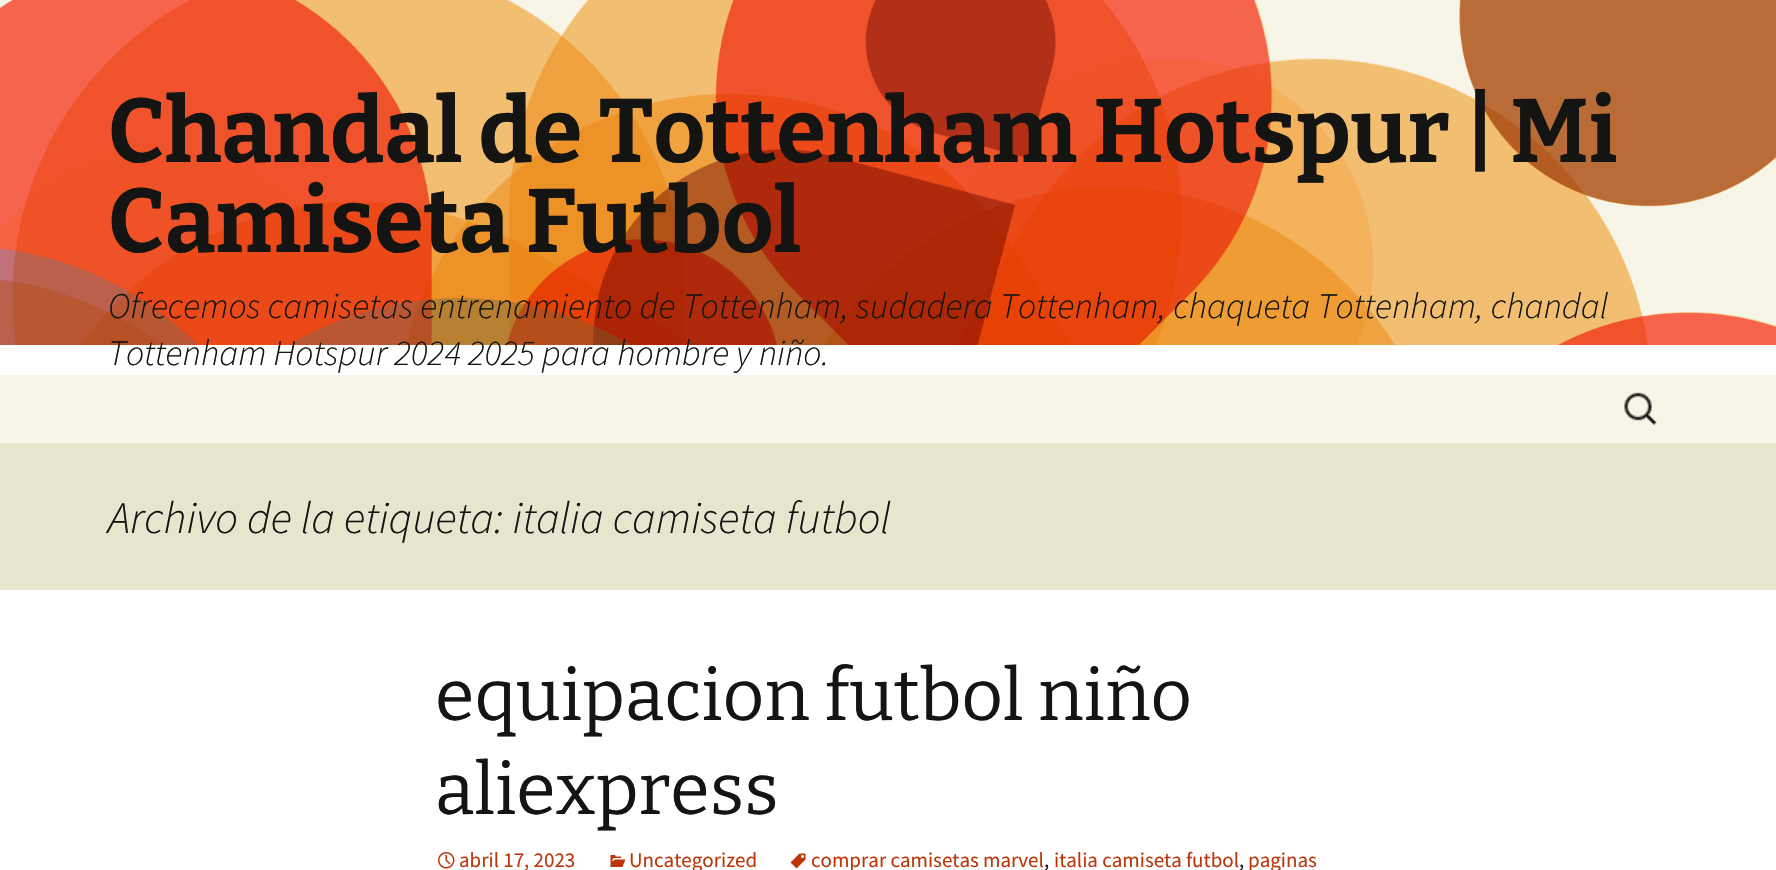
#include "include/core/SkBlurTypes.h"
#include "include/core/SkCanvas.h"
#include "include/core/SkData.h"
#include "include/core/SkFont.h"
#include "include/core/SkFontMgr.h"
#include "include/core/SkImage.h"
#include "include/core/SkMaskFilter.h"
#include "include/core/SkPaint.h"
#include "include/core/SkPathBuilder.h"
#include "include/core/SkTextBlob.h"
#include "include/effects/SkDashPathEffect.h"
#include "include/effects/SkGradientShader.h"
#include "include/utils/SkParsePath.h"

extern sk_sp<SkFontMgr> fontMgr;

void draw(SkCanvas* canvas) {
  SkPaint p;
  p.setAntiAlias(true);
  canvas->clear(SK_ColorWHITE);
  canvas->drawImageRect(SkImages::DeferredFromEncodedData(SkData::MakeFromFileName("images/1.png")), SkRect::MakeLTRB(0, 0, 1776, 345), SkSamplingOptions());
  p.setColor(SkColorSetRGB(247, 245, 231));
  canvas->drawRect(SkRect::MakeLTRB(0, 375, 1776, 443), p);
  canvas->drawImageRect(SkImages::DeferredFromEncodedData(SkData::MakeFromFileName("images/2.png")), SkRect::MakeLTRB(1624, 392, 1657, 425), SkSamplingOptions());
  p.setColor(SkColorSetRGB(232, 229, 206));
  canvas->drawRect(SkRect::MakeLTRB(0, 443, 1776, 590), p);
  canvas->drawImageRect(SkImages::DeferredFromEncodedData(SkData::MakeFromFileName("images/3.png")), SkRect::MakeLTRB(438, 852, 455, 869), SkSamplingOptions());
  canvas->drawImageRect(SkImages::DeferredFromEncodedData(SkData::MakeFromFileName("images/4.png")), SkRect::MakeLTRB(610, 855, 626, 867), SkSamplingOptions());
  canvas->drawImageRect(SkImages::DeferredFromEncodedData(SkData::MakeFromFileName("images/5.png")), SkRect::MakeLTRB(790, 853, 806, 869), SkSamplingOptions());
  SkFont font1(fontMgr->matchFamilyStyle("Bitter", SkFontStyle(100, SkFontStyle::kNormal_Width, SkFontStyle::kUpright_Slant)), 90);
  font1.setSubpixel(true);
  p.setColor(SkColorSetRGB(20, 20, 18));
  canvas->drawString("Chandal de Tottenham Hotspur | Mi", 108, 162, font1, p);
  canvas->drawString("Camiseta Futbol", 108, 252, font1, p);
  SkFont font2(fontMgr->matchFamilyStyle("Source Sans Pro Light", SkFontStyle(300, SkFontStyle::kNormal_Width, SkFontStyle::kItalic_Slant)), 36);
  font2.setSubpixel(true);
  canvas->drawString("Ofrecemos camisetas entrenamiento de Tottenham, sudadera Tottenham, chaqueta Tottenham, chandal", 108, 318, font2, p);
  canvas->drawString("Tottenham Hotspur 2024 2025 para hombre y niño.", 108, 365, font2, p);
  SkFont font3(fontMgr->matchFamilyStyle("Source Sans Pro Light", SkFontStyle(300, SkFontStyle::kNormal_Width, SkFontStyle::kItalic_Slant)), 45);
  font3.setSubpixel(true);
  canvas->drawString("Archivo de la etiqueta: italia camiseta futbol", 108, 533, font3, p);
  SkFont font4(fontMgr->matchFamilyStyle("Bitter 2", SkFontStyle(100, SkFontStyle::kNormal_Width, SkFontStyle::kUpright_Slant)), 72);
  font4.setSubpixel(true);
  canvas->drawString("equipacion futbol niño", 435, 720, font4, p);
  canvas->drawString("aliexpress", 435, 814, font4, p);
  SkFont font5(fontMgr->matchFamilyStyle("Source Sans Pro", SkFontStyle::Normal()), 21);
  font5.setSubpixel(true);
  p.setColor(SkColorSetRGB(188, 54, 10));
  canvas->drawString("abril 17, 2023", 459, 867, font5, p);
  canvas->drawString("Uncategorized", 629, 867, font5, p);
  canvas->drawString("comprar camisetas marvel", 811, 867, font5, p);
  p.setColor(SkColorSetRGB(20, 20, 18));
  canvas->drawString(",", 1044, 867, font5, p);
  p.setColor(SkColorSetRGB(188, 54, 10));
  canvas->drawString("italia camiseta futbol", 1054, 867, font5, p);
  p.setColor(SkColorSetRGB(20, 20, 18));
  canvas->drawString(",", 1239, 867, font5, p);
  p.setColor(SkColorSetRGB(188, 54, 10));
  canvas->drawString("paginas", 1248, 867, font5, p);
}
